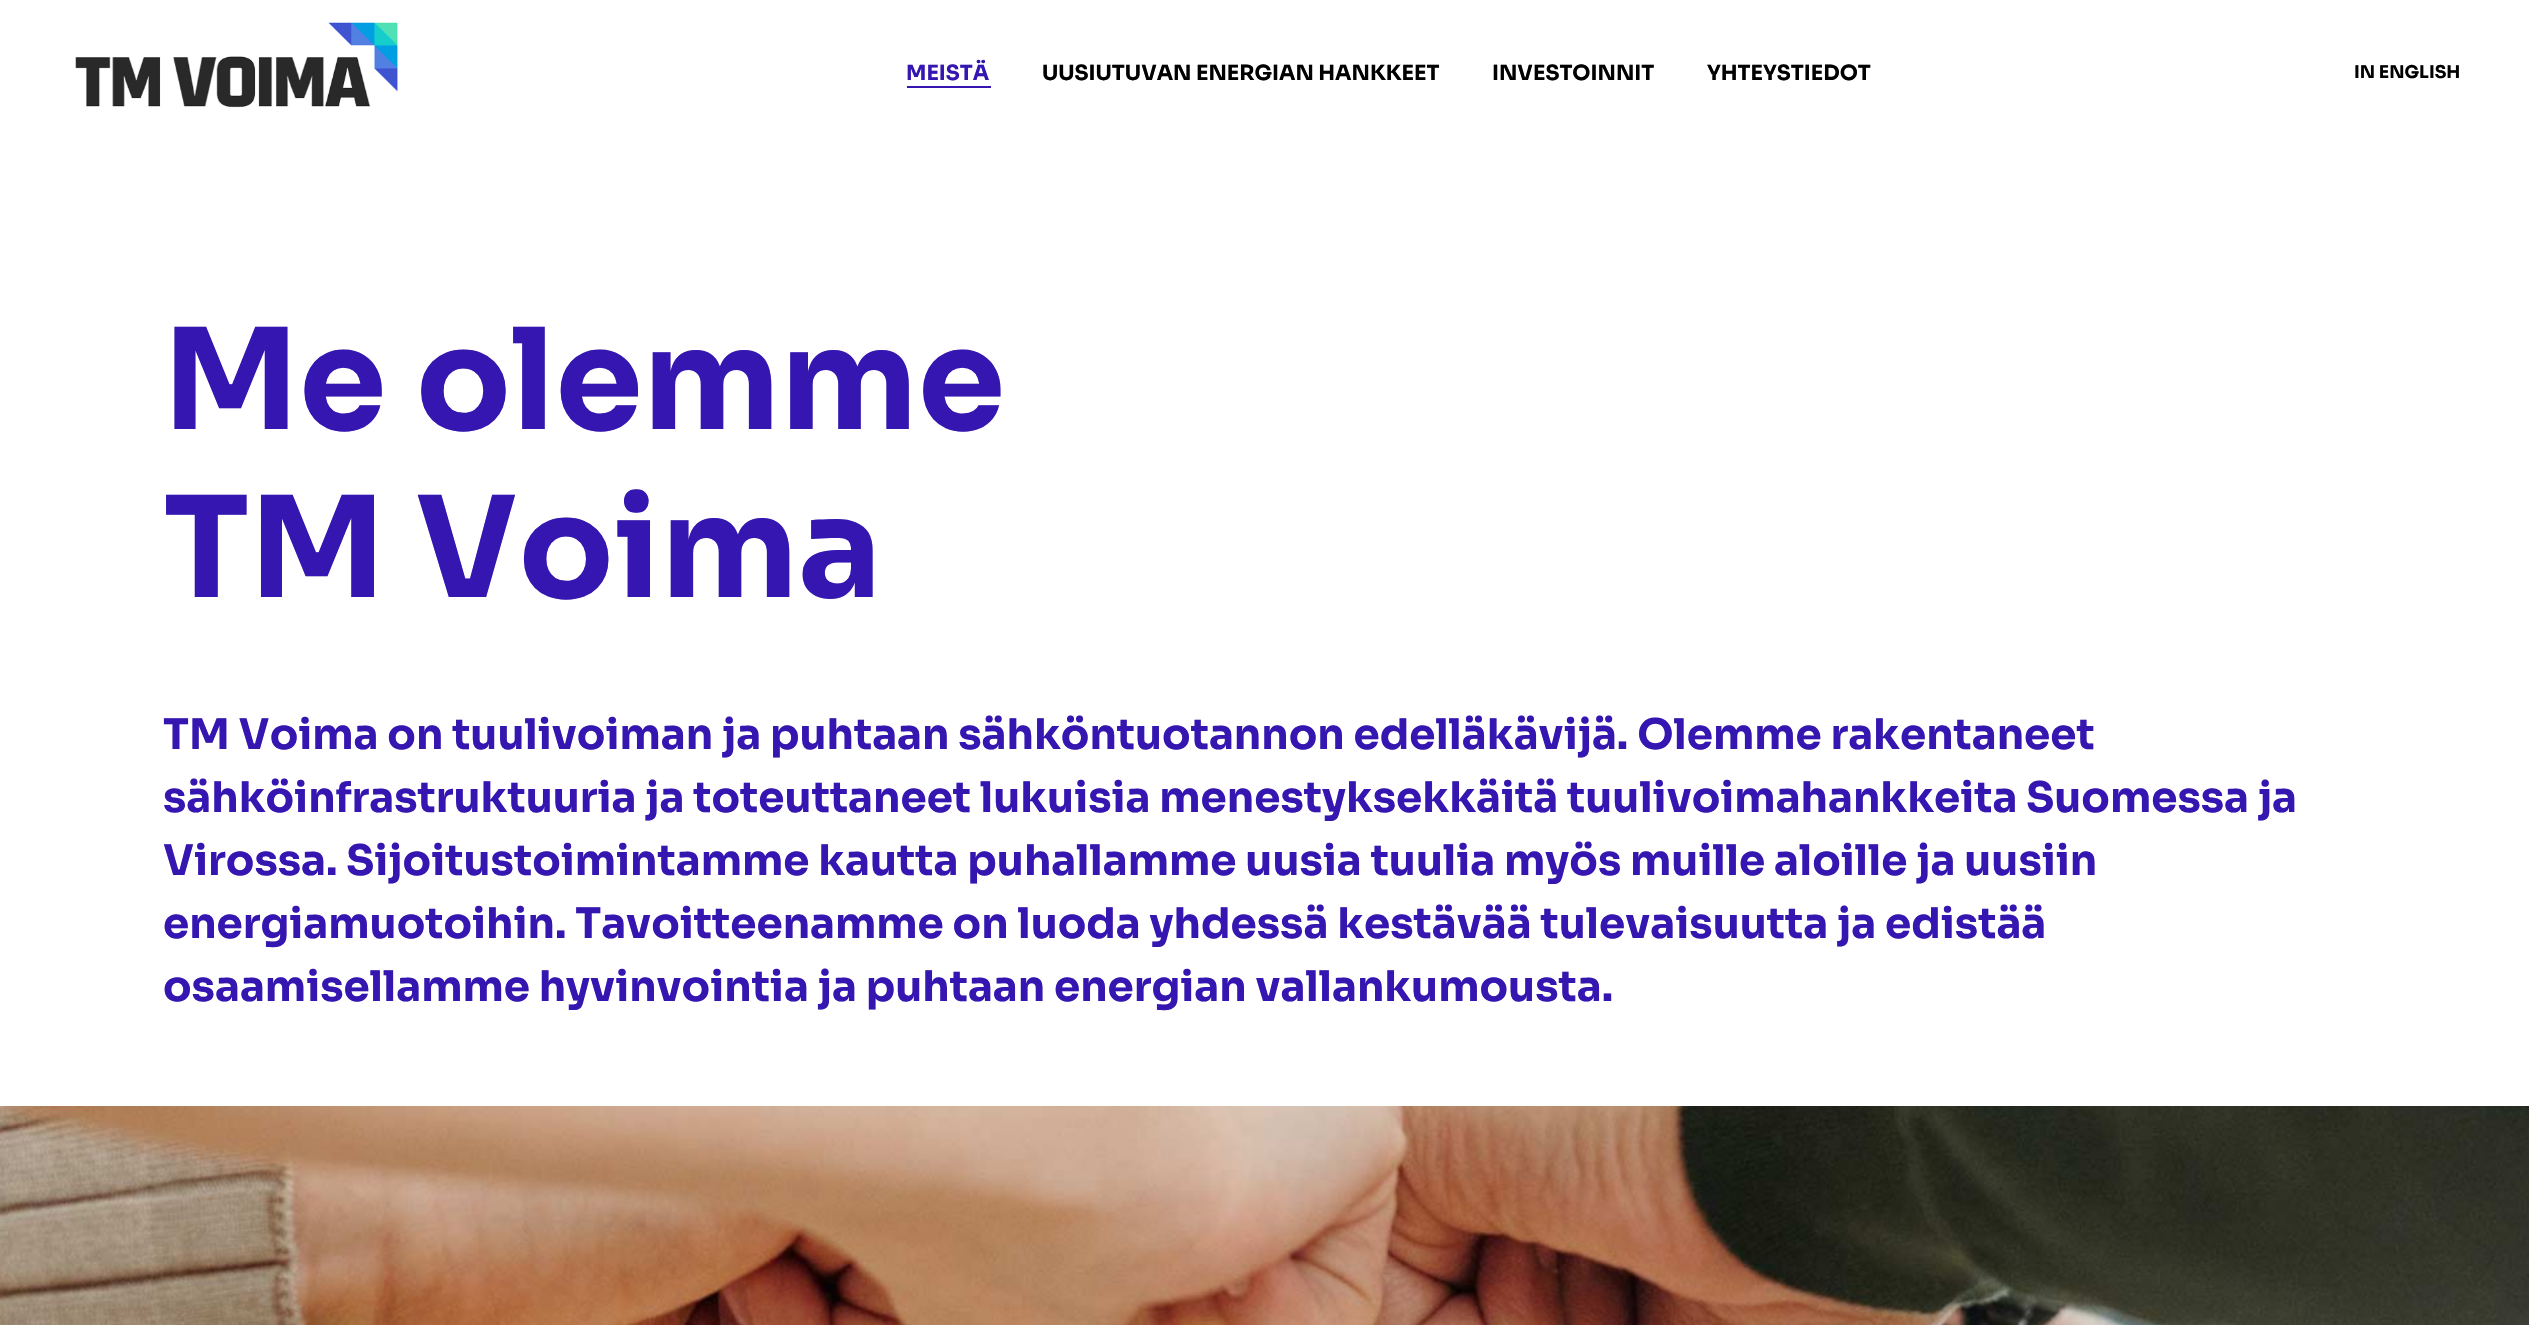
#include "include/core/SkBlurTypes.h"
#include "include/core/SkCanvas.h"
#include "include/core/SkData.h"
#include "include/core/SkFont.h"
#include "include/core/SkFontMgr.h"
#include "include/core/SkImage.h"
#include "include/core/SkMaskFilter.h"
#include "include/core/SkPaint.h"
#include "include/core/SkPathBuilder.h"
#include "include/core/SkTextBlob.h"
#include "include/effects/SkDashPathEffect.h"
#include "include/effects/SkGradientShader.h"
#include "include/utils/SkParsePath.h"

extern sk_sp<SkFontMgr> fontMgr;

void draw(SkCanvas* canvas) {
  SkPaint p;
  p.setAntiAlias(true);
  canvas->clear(SK_ColorWHITE);
  canvas->drawImageRect(SkImages::DeferredFromEncodedData(SkData::MakeFromFileName("images/1.png")), SkRect::MakeLTRB(75, 22, 398, 108), SkSamplingOptions());
  p.setColor(SkColorSetRGB(53, 22, 176));
  canvas->drawRect(SkRect::MakeLTRB(907, 86, 991, 88), p);
  canvas->drawImageRect(SkImages::DeferredFromEncodedData(SkData::MakeFromFileName("images/2.png")), SkRect::MakeLTRB(0, 1106, 2529, 1325), SkSamplingOptions());
  SkFont font1(fontMgr->matchFamilyStyle("Sora", SkFontStyle::Bold()), 21);
  font1.setSubpixel(true);
  canvas->drawString("MEISTÄ", 906, 80, font1, p);
  p.setColor(SK_ColorBLACK);
  canvas->drawString("UUSIUTUVAN ENERGIAN HANKKEET", 1042, 80, font1, p);
  canvas->drawString("INVESTOINNIT", 1492, 80, font1, p);
  canvas->drawString("YHTEYSTIEDOT", 1707, 80, font1, p);
  SkFont font2(fontMgr->matchFamilyStyle("Sora", SkFontStyle::Bold()), 17.5f);
  font2.setSubpixel(true);
  canvas->drawString("IN ENGLISH", 2354, 78, font2, p);
  SkFont font3(fontMgr->matchFamilyStyle("Sora", SkFontStyle::Bold()), 140);
  font3.setSubpixel(true);
  p.setColor(SkColorSetRGB(53, 22, 176));
  canvas->drawString("Me olemme", 163, 429, font3, p);
  canvas->drawString("TM Voima", 163, 597, font3, p);
  SkFont font4(fontMgr->matchFamilyStyle("Sora", SkFontStyle::Bold()), 42);
  font4.setSubpixel(true);
  canvas->drawString("TM Voima on tuulivoiman ja puhtaan sähköntuotannon edelläkävijä. Olemme rakentaneet", 163, 749, font4, p);
  canvas->drawString("sähköinfrastruktuuria ja toteuttaneet lukuisia menestyksekkäitä tuulivoimahankkeita Suomessa ja", 163, 812, font4, p);
  canvas->drawString("Virossa. Sijoitustoimintamme kautta puhallamme uusia tuulia myös muille aloille ja uusiin", 163, 875, font4, p);
  canvas->drawString("energiamuotoihin. Tavoitteenamme on luoda yhdessä kestävää tulevaisuutta ja edistää", 163, 938, font4, p);
  canvas->drawString("osaamisellamme hyvinvointia ja puhtaan energian vallankumousta.", 163, 1001, font4, p);
}
